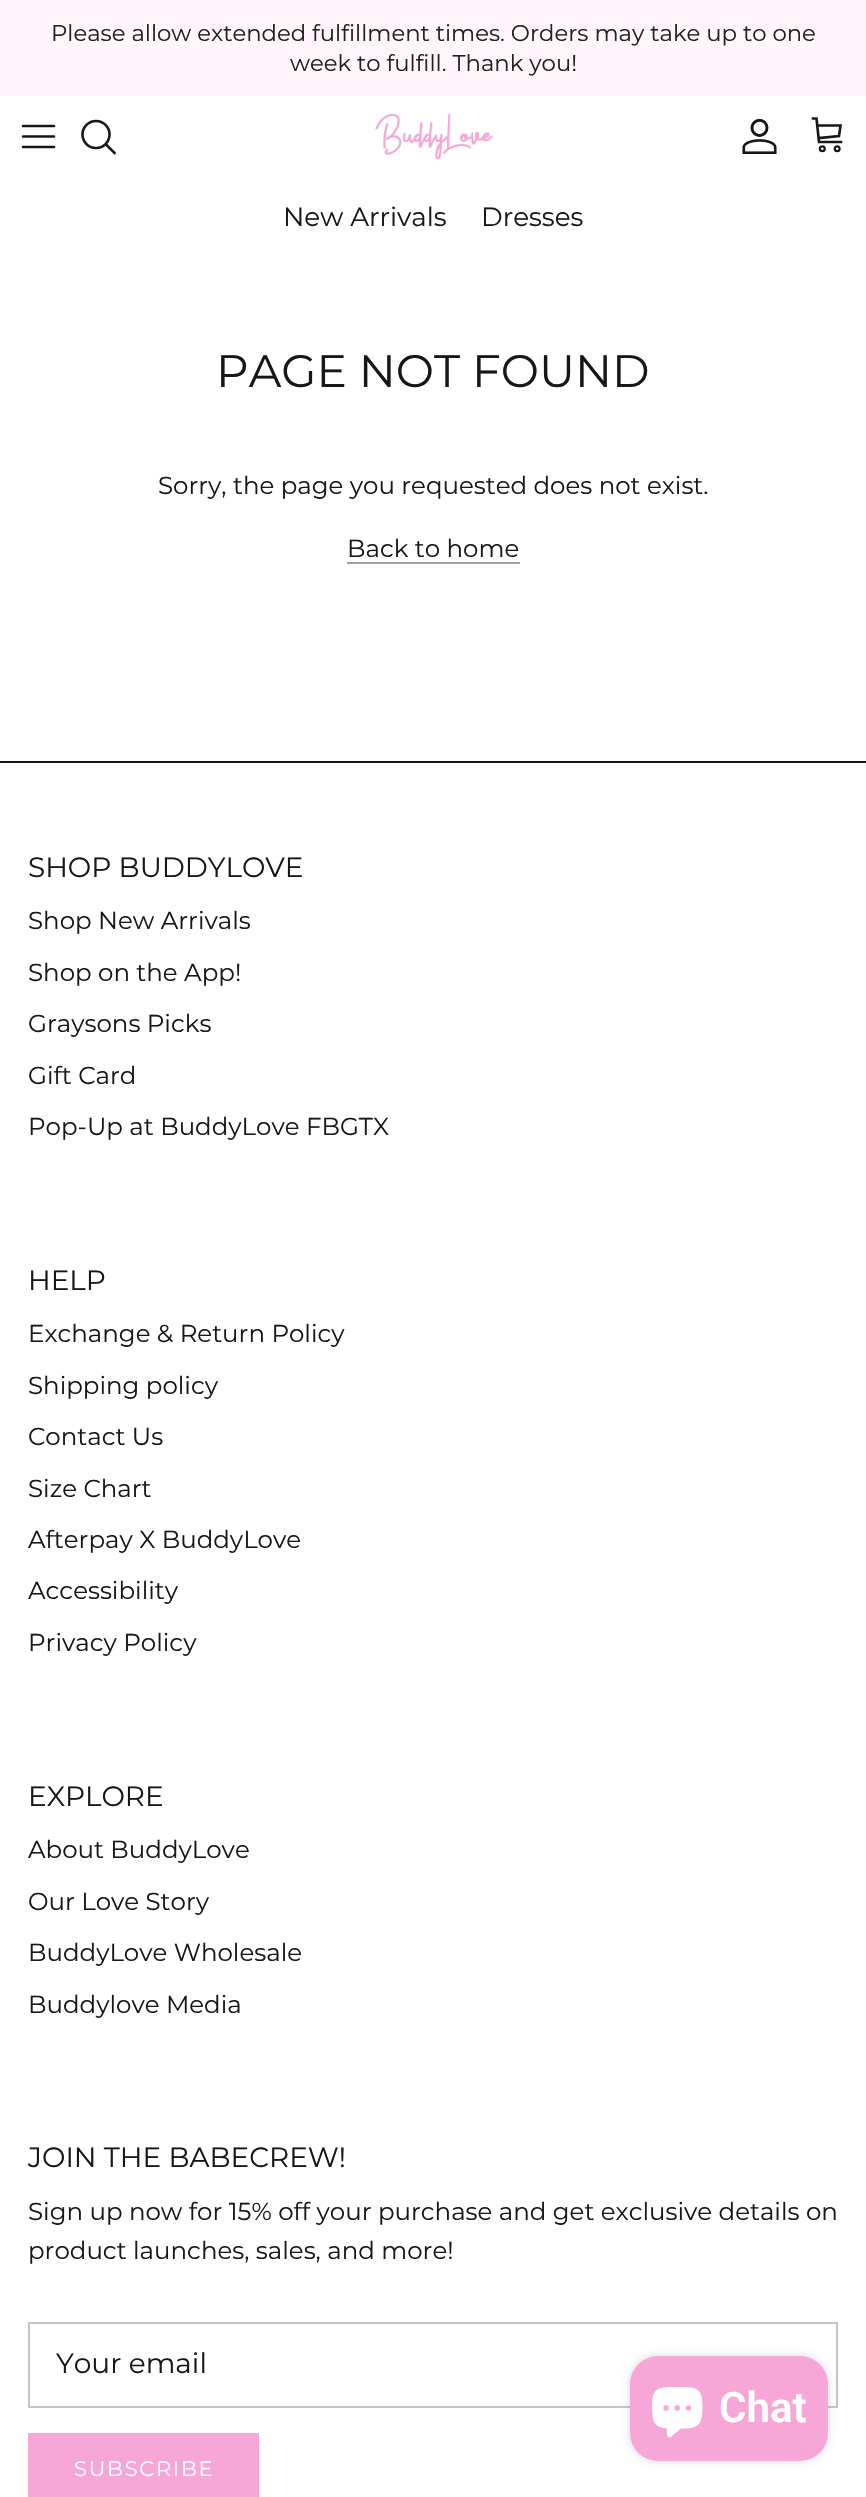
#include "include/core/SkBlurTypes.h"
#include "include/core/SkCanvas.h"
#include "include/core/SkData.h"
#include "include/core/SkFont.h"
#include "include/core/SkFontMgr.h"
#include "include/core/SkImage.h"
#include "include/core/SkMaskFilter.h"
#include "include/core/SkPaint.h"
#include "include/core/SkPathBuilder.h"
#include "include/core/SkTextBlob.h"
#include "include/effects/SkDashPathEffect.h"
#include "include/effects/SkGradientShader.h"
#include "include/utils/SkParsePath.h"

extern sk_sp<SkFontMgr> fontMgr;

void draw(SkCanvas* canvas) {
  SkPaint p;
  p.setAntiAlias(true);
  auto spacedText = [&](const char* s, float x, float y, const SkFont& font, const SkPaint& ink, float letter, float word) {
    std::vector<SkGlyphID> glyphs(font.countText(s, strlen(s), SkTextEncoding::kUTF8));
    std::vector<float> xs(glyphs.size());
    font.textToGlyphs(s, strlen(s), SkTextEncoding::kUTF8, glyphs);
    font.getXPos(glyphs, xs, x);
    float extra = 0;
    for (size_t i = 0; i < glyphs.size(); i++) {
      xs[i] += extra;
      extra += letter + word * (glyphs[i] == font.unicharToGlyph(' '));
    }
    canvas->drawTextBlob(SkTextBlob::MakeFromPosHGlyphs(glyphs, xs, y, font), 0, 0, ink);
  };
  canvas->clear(SK_ColorWHITE);
  p.setColor(SkColorSetRGB(255, 245, 251));
  canvas->drawRect(SkRect::MakeLTRB(0, 0, 866, 96), p);
  p.setStyle(SkPaint::kStroke_Style);
  p.setStrokeWidth(2.6f);
  p.setStrokeCap(SkPaint::kRound_Cap);
  p.setStrokeJoin(SkPaint::kRound_Join);
  p.setColor(SkColorSetRGB(23, 23, 23));
  canvas->drawPath(SkPathBuilder().moveTo(23, 136.5f).lineTo(54, 136.5f).moveTo(23, 126).lineTo(54, 126).moveTo(23, 147).lineTo(54, 147).detach(), p);
  p.setStrokeCap(SkPaint::kButt_Cap);
  p.setStrokeJoin(SkPaint::kMiter_Join);
  canvas->drawCircle(96, 134.5f, 13.5f, p);
  p.setStrokeCap(SkPaint::kSquare_Cap);
  canvas->drawPath(SkPathBuilder().moveTo(106.5f, 145).lineTo(114.5f, 153).detach(), p);
  canvas->drawImageRect(SkImages::DeferredFromEncodedData(SkData::MakeFromFileName("images/1.png")), SkRect::MakeLTRB(375, 113, 493, 160), SkSamplingOptions());
  canvas->drawImageRect(SkImages::DeferredFromEncodedData(SkData::MakeFromFileName("images/2.png")), SkRect::MakeLTRB(742, 119, 777, 154), SkSamplingOptions());
  canvas->drawPath(SkPathBuilder().moveTo(813, 118.5f).lineTo(816.5f, 118.5f).lineTo(819, 142).lineTo(841, 142).moveTo(817.5f, 125.5f).lineTo(840.5f, 125.5f).lineTo(839, 136).lineTo(820, 138).detach(), p);
  p.setStrokeWidth(2.2f);
  p.setStrokeCap(SkPaint::kButt_Cap);
  canvas->drawCircle(822.3f, 148.8f, 2.4f, p);
  canvas->drawCircle(837.2f, 148.8f, 2.4f, p);
  p.setStyle(SkPaint::kFill_Style);
  p.setColor(SkColorSetRGB(162, 162, 162));
  canvas->drawRect(SkRect::MakeLTRB(347, 562, 520, 564), p);
  p.setColor(SkColorSetRGB(23, 23, 23));
  canvas->drawRect(SkRect::MakeLTRB(0, 761, 866, 763), p);
  p.setStyle(SkPaint::kStroke_Style);
  p.setStrokeWidth(2);
  p.setColor(SkColorSetRGB(197, 197, 197));
  canvas->drawRect(SkRect::MakeLTRB(29, 2323, 837, 2407), p);
  p.setStyle(SkPaint::kFill_Style);
  p.setColor(SkColorSetRGB(246, 167, 215));
  canvas->drawRect(SkRect::MakeLTRB(28, 2433, 259, 2497), p);
  p.setColor(SkColorSetARGB(38, 0, 0, 0));
  p.setMaskFilter(SkMaskFilter::MakeBlur(kNormal_SkBlurStyle, 4.5f));
  canvas->drawRoundRect(SkRect::MakeLTRB(630, 2356, 828, 2461), 28, 28, p);
  p.setMaskFilter(nullptr);
  p.setColor(SkColorSetRGB(246, 167, 215));
  canvas->drawRoundRect(SkRect::MakeLTRB(630, 2356, 828, 2461), 28, 28, p);
  canvas->drawImageRect(SkImages::DeferredFromEncodedData(SkData::MakeFromFileName("images/3.png")), SkRect::MakeLTRB(652, 2387, 703, 2438), SkSamplingOptions());
  SkFont font1(fontMgr->matchFamilyStyle("Montserrat", SkFontStyle::Normal()), 22.75f);
  font1.setSubpixel(true);
  p.setColor(SkColorSetRGB(33, 33, 33));
  canvas->drawString("Please allow extended fulfillment times. Orders may take up to one", 51, 41, font1, p);
  canvas->drawString("week to fulfill. Thank you!", 290, 71, font1, p);
  SkFont font2(fontMgr->matchFamilyStyle("Montserrat", SkFontStyle::Normal()), 26.25f);
  font2.setSubpixel(true);
  p.setColor(SkColorSetRGB(23, 23, 23));
  canvas->drawString("New Arrivals", 283, 226, font2, p);
  canvas->drawString("Dresses", 481, 226, font2, p);
  SkFont font3(fontMgr->matchFamilyStyle("Montserrat", SkFontStyle::Normal()), 45.5f);
  font3.setSubpixel(true);
  canvas->drawString("PAGE NOT FOUND", 216, 387, font3, p);
  SkFont font4(fontMgr->matchFamilyStyle("Montserrat", SkFontStyle::Normal()), 24.5f);
  font4.setSubpixel(true);
  canvas->drawString("Sorry, the page you requested does not exist.", 158, 494, font4, p);
  canvas->drawString("Back to home", 347, 557, font4, p);
  SkFont font5(fontMgr->matchFamilyStyle("Montserrat", SkFontStyle::Normal()), 27.9f);
  font5.setSubpixel(true);
  canvas->drawString("SHOP BUDDYLOVE", 28, 877, font5, p);
  canvas->drawString("Shop New Arrivals", 28, 929, font4, p);
  canvas->drawString("Shop on the App!", 28, 981, font4, p);
  canvas->drawString("Graysons Picks", 28, 1032, font4, p);
  canvas->drawString("Gift Card", 28, 1084, font4, p);
  canvas->drawString("Pop-Up at BuddyLove FBGTX", 28, 1135, font4, p);
  canvas->drawString("HELP", 28, 1290, font5, p);
  canvas->drawString("Exchange & Return Policy", 28, 1342, font4, p);
  canvas->drawString("Shipping policy", 28, 1394, font4, p);
  canvas->drawString("Contact Us", 28, 1445, font4, p);
  canvas->drawString("Size Chart", 28, 1497, font4, p);
  canvas->drawString("Afterpay X BuddyLove", 28, 1548, font4, p);
  canvas->drawString("Accessibility", 28, 1599, font4, p);
  canvas->drawString("Privacy Policy", 28, 1651, font4, p);
  canvas->drawString("EXPLORE", 28, 1806, font5, p);
  canvas->drawString("About BuddyLove", 28, 1858, font4, p);
  canvas->drawString("Our Love Story", 28, 1910, font4, p);
  canvas->drawString("BuddyLove Wholesale", 28, 1961, font4, p);
  canvas->drawString("Buddylove Media", 28, 2013, font4, p);
  canvas->drawString("JOIN THE BABECREW!", 28, 2167, font5, p);
  canvas->drawString("Sign up now for 15% off your purchase and get exclusive details on", 28, 2220, font4, p);
  canvas->drawString("product launches, sales, and more!", 28, 2259, font4, p);
  SkFont font6(fontMgr->matchFamilyStyle("Montserrat", SkFontStyle::Normal()), 28);
  font6.setSubpixel(true);
  canvas->drawString("Your email", 56, 2373, font6, p);
  SkFont font7(fontMgr->matchFamilyStyle("Montserrat", SkFontStyle::Normal()), 21);
  font7.setSubpixel(true);
  p.setColor(SK_ColorWHITE);
  spacedText("SUBSCRIBE", 74, 2476, font7, p, 1.75f, 0);
  SkFont font8(fontMgr->matchFamilyStyle("Roboto", SkFontStyle(600, SkFontStyle::kNormal_Width, SkFontStyle::kUpright_Slant)), 42);
  font8.setSubpixel(true);
  canvas->drawString("Chat", 719, 2422, font8, p);
}
